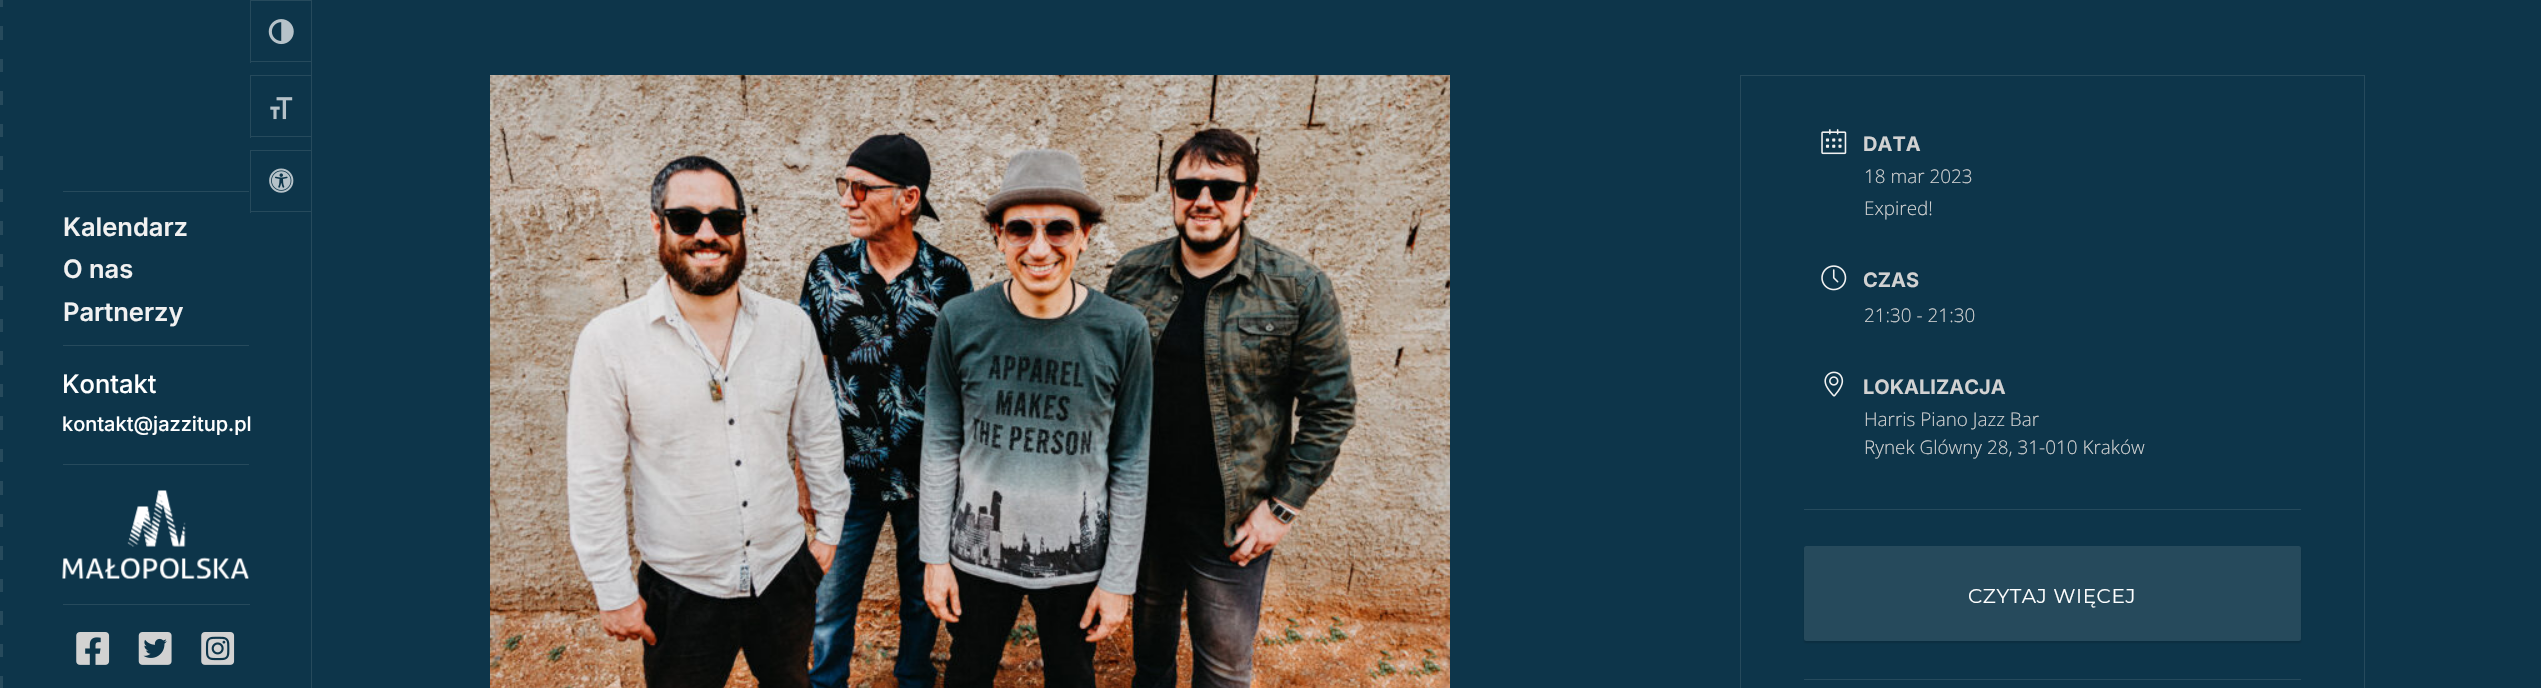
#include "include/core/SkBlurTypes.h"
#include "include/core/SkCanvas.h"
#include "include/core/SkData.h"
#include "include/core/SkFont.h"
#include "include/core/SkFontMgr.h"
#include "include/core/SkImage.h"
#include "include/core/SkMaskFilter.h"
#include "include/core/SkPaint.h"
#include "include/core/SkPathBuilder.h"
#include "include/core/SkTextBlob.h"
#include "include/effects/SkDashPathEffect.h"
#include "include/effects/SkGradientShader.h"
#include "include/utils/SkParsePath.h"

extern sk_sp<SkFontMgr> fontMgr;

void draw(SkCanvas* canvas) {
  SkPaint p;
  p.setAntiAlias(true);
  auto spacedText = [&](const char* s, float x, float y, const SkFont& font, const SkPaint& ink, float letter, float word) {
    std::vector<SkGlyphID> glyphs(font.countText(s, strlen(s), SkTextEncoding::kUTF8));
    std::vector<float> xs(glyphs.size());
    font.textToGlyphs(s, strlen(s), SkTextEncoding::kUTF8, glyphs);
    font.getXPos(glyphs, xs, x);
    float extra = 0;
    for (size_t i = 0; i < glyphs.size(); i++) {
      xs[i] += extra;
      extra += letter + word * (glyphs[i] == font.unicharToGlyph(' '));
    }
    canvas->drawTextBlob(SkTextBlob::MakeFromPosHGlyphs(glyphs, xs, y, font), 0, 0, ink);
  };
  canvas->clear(SkColorSetRGB(13, 53, 74));
  p.setColor(SkColorSetRGB(38, 74, 92));
  canvas->drawRect(SkRect::MakeLTRB(311, 0, 312, 688), p);
  canvas->drawRect(SkRect::MakeLTRB(0, 0, 3, 7), p);
  canvas->drawRect(SkRect::MakeLTRB(0, 26, 3, 40), p);
  canvas->drawRect(SkRect::MakeLTRB(0, 59, 3, 72), p);
  canvas->drawRect(SkRect::MakeLTRB(0, 91, 3, 105), p);
  canvas->drawRect(SkRect::MakeLTRB(0, 124, 3, 137), p);
  canvas->drawRect(SkRect::MakeLTRB(0, 156, 3, 170), p);
  canvas->drawRect(SkRect::MakeLTRB(0, 189, 3, 202), p);
  canvas->drawRect(SkRect::MakeLTRB(0, 221, 3, 235), p);
  canvas->drawRect(SkRect::MakeLTRB(0, 254, 3, 267), p);
  canvas->drawRect(SkRect::MakeLTRB(0, 286, 3, 300), p);
  canvas->drawRect(SkRect::MakeLTRB(0, 319, 3, 332), p);
  canvas->drawRect(SkRect::MakeLTRB(0, 351, 3, 365), p);
  canvas->drawRect(SkRect::MakeLTRB(0, 384, 3, 397), p);
  canvas->drawRect(SkRect::MakeLTRB(0, 416, 3, 430), p);
  canvas->drawRect(SkRect::MakeLTRB(0, 449, 3, 462), p);
  canvas->drawRect(SkRect::MakeLTRB(0, 481, 3, 495), p);
  canvas->drawRect(SkRect::MakeLTRB(0, 514, 3, 527), p);
  canvas->drawRect(SkRect::MakeLTRB(0, 546, 3, 560), p);
  canvas->drawRect(SkRect::MakeLTRB(0, 579, 3, 592), p);
  canvas->drawRect(SkRect::MakeLTRB(0, 611, 3, 625), p);
  canvas->drawRect(SkRect::MakeLTRB(0, 644, 3, 657), p);
  canvas->drawRect(SkRect::MakeLTRB(0, 676, 3, 688), p);
  canvas->drawRect(SkRect::MakeLTRB(250, 0, 311, 1), p);
  canvas->drawRect(SkRect::MakeLTRB(250, 61, 311, 62), p);
  canvas->drawRect(SkRect::MakeLTRB(250, 0, 251, 63), p);
  canvas->drawImageRect(SkImages::DeferredFromEncodedData(SkData::MakeFromFileName("images/1.png")), SkRect::MakeLTRB(268, 19, 294, 45), SkSamplingOptions());
  canvas->drawRect(SkRect::MakeLTRB(250, 75, 311, 76), p);
  canvas->drawRect(SkRect::MakeLTRB(250, 136, 311, 137), p);
  canvas->drawRect(SkRect::MakeLTRB(250, 75, 251, 138), p);
  canvas->drawImageRect(SkImages::DeferredFromEncodedData(SkData::MakeFromFileName("images/2.png")), SkRect::MakeLTRB(270, 97, 293, 120), SkSamplingOptions());
  canvas->drawRect(SkRect::MakeLTRB(250, 150, 311, 151), p);
  canvas->drawRect(SkRect::MakeLTRB(250, 211, 311, 212), p);
  canvas->drawRect(SkRect::MakeLTRB(250, 150, 251, 213), p);
  canvas->drawImageRect(SkImages::DeferredFromEncodedData(SkData::MakeFromFileName("images/3.png")), SkRect::MakeLTRB(269, 168, 294, 193), SkSamplingOptions());
  canvas->drawRect(SkRect::MakeLTRB(63, 191, 249, 192), p);
  canvas->drawRect(SkRect::MakeLTRB(63, 345, 249, 346), p);
  canvas->drawRect(SkRect::MakeLTRB(63, 464, 249, 465), p);
  canvas->drawImageRect(SkImages::DeferredFromEncodedData(SkData::MakeFromFileName("images/4.png")), SkRect::MakeLTRB(62, 490, 249, 579), SkSamplingOptions());
  canvas->drawRect(SkRect::MakeLTRB(63, 604, 250, 605), p);
  canvas->drawImageRect(SkImages::DeferredFromEncodedData(SkData::MakeFromFileName("images/5.png")), SkRect::MakeLTRB(76, 632, 110, 665), SkSamplingOptions());
  canvas->drawImageRect(SkImages::DeferredFromEncodedData(SkData::MakeFromFileName("images/6.png")), SkRect::MakeLTRB(138, 632, 172, 665), SkSamplingOptions());
  canvas->drawImageRect(SkImages::DeferredFromEncodedData(SkData::MakeFromFileName("images/7.png")), SkRect::MakeLTRB(201, 632, 235, 665), SkSamplingOptions());
  canvas->drawImageRect(SkImages::DeferredFromEncodedData(SkData::MakeFromFileName("images/8.png")), SkRect::MakeLTRB(490, 75, 1450, 688), SkSamplingOptions());
  p.setStyle(SkPaint::kStroke_Style);
  p.setStrokeWidth(1);
  canvas->drawRect(SkRect::MakeLTRB(1740.5f, 75.5f, 2364.5f, 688.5f), p);
  canvas->drawImageRect(SkImages::DeferredFromEncodedData(SkData::MakeFromFileName("images/9.png")), SkRect::MakeLTRB(1821, 129, 1847, 155), SkSamplingOptions());
  canvas->drawImageRect(SkImages::DeferredFromEncodedData(SkData::MakeFromFileName("images/10.png")), SkRect::MakeLTRB(1821, 265, 1847, 291), SkSamplingOptions());
  canvas->drawImageRect(SkImages::DeferredFromEncodedData(SkData::MakeFromFileName("images/11.png")), SkRect::MakeLTRB(1824, 371, 1844, 397), SkSamplingOptions());
  p.setStyle(SkPaint::kFill_Style);
  p.setColor(SkColorSetARGB(38, 0, 0, 0));
  p.setMaskFilter(SkMaskFilter::MakeBlur(kNormal_SkBlurStyle, 1));
  canvas->drawRoundRect(SkRect::MakeLTRB(1804, 548, 2301, 643), 2.5f, 2.5f, p);
  p.setMaskFilter(nullptr);
  p.setColor(SkColorSetRGB(38, 74, 92));
  canvas->drawRoundRect(SkRect::MakeLTRB(1804, 546, 2301, 641), 2.5f, 2.5f, p);
  canvas->drawRect(SkRect::MakeLTRB(1804, 509, 2301, 510), p);
  canvas->drawRect(SkRect::MakeLTRB(1804, 679, 2301, 680), p);
  SkFont font1(fontMgr->matchFamilyStyle("Inter", SkFontStyle(600, SkFontStyle::kNormal_Width, SkFontStyle::kUpright_Slant)), 25.5f);
  font1.setSubpixel(true);
  p.setColor(SkColorSetRGB(241, 241, 241));
  canvas->drawString("Kalendarz", 63, 236, font1, p);
  canvas->drawString("O nas", 63, 278, font1, p);
  canvas->drawString("Partnerzy", 63, 321, font1, p);
  SkFont font2(fontMgr->matchFamilyStyle("Inter", SkFontStyle(500, SkFontStyle::kNormal_Width, SkFontStyle::kUpright_Slant)), 25.5f);
  font2.setSubpixel(true);
  p.setColor(SK_ColorWHITE);
  canvas->drawString("Kontakt", 62, 393, font2, p);
  SkFont font3(fontMgr->matchFamilyStyle("Inter", SkFontStyle(500, SkFontStyle::kNormal_Width, SkFontStyle::kUpright_Slant)), 20);
  font3.setSubpixel(true);
  canvas->drawString("kontakt@jazzitup.pl", 62, 431, font3, p);
  SkFont font4(fontMgr->matchFamilyStyle("Inter", SkFontStyle::Bold()), 20);
  font4.setSubpixel(true);
  p.setColor(SkColorSetRGB(210, 210, 210));
  canvas->drawString("DATA", 1863, 151, font4, p);
  SkFont font5(fontMgr->matchFamilyStyle("Open Sans", SkFontStyle(300, SkFontStyle::kNormal_Width, SkFontStyle::kUpright_Slant)), 18.9f);
  font5.setSubpixel(true);
  canvas->drawString("18 mar 2023", 1864, 183, font5, p);
  canvas->drawString("Expired!", 1864, 215, font5, p);
  canvas->drawString("CZAS", 1863, 287, font4, p);
  canvas->drawString("21:30 - 21:30", 1864, 322, font5, p);
  canvas->drawString("LOKALIZACJA", 1863, 394, font4, p);
  canvas->drawString("Harris Piano Jazz Bar", 1864, 426, font5, p);
  canvas->drawString("Rynek Glówny 28, 31-010 Kraków", 1864, 454, font5, p);
  SkFont font6(fontMgr->matchFamilyStyle("Montserrat", SkFontStyle::Normal()), 20);
  font6.setSubpixel(true);
  p.setColor(SK_ColorWHITE);
  spacedText("CZYTAJ WIĘCEJ", 1968, 603, font6, p, 0.6f, 0);
}
